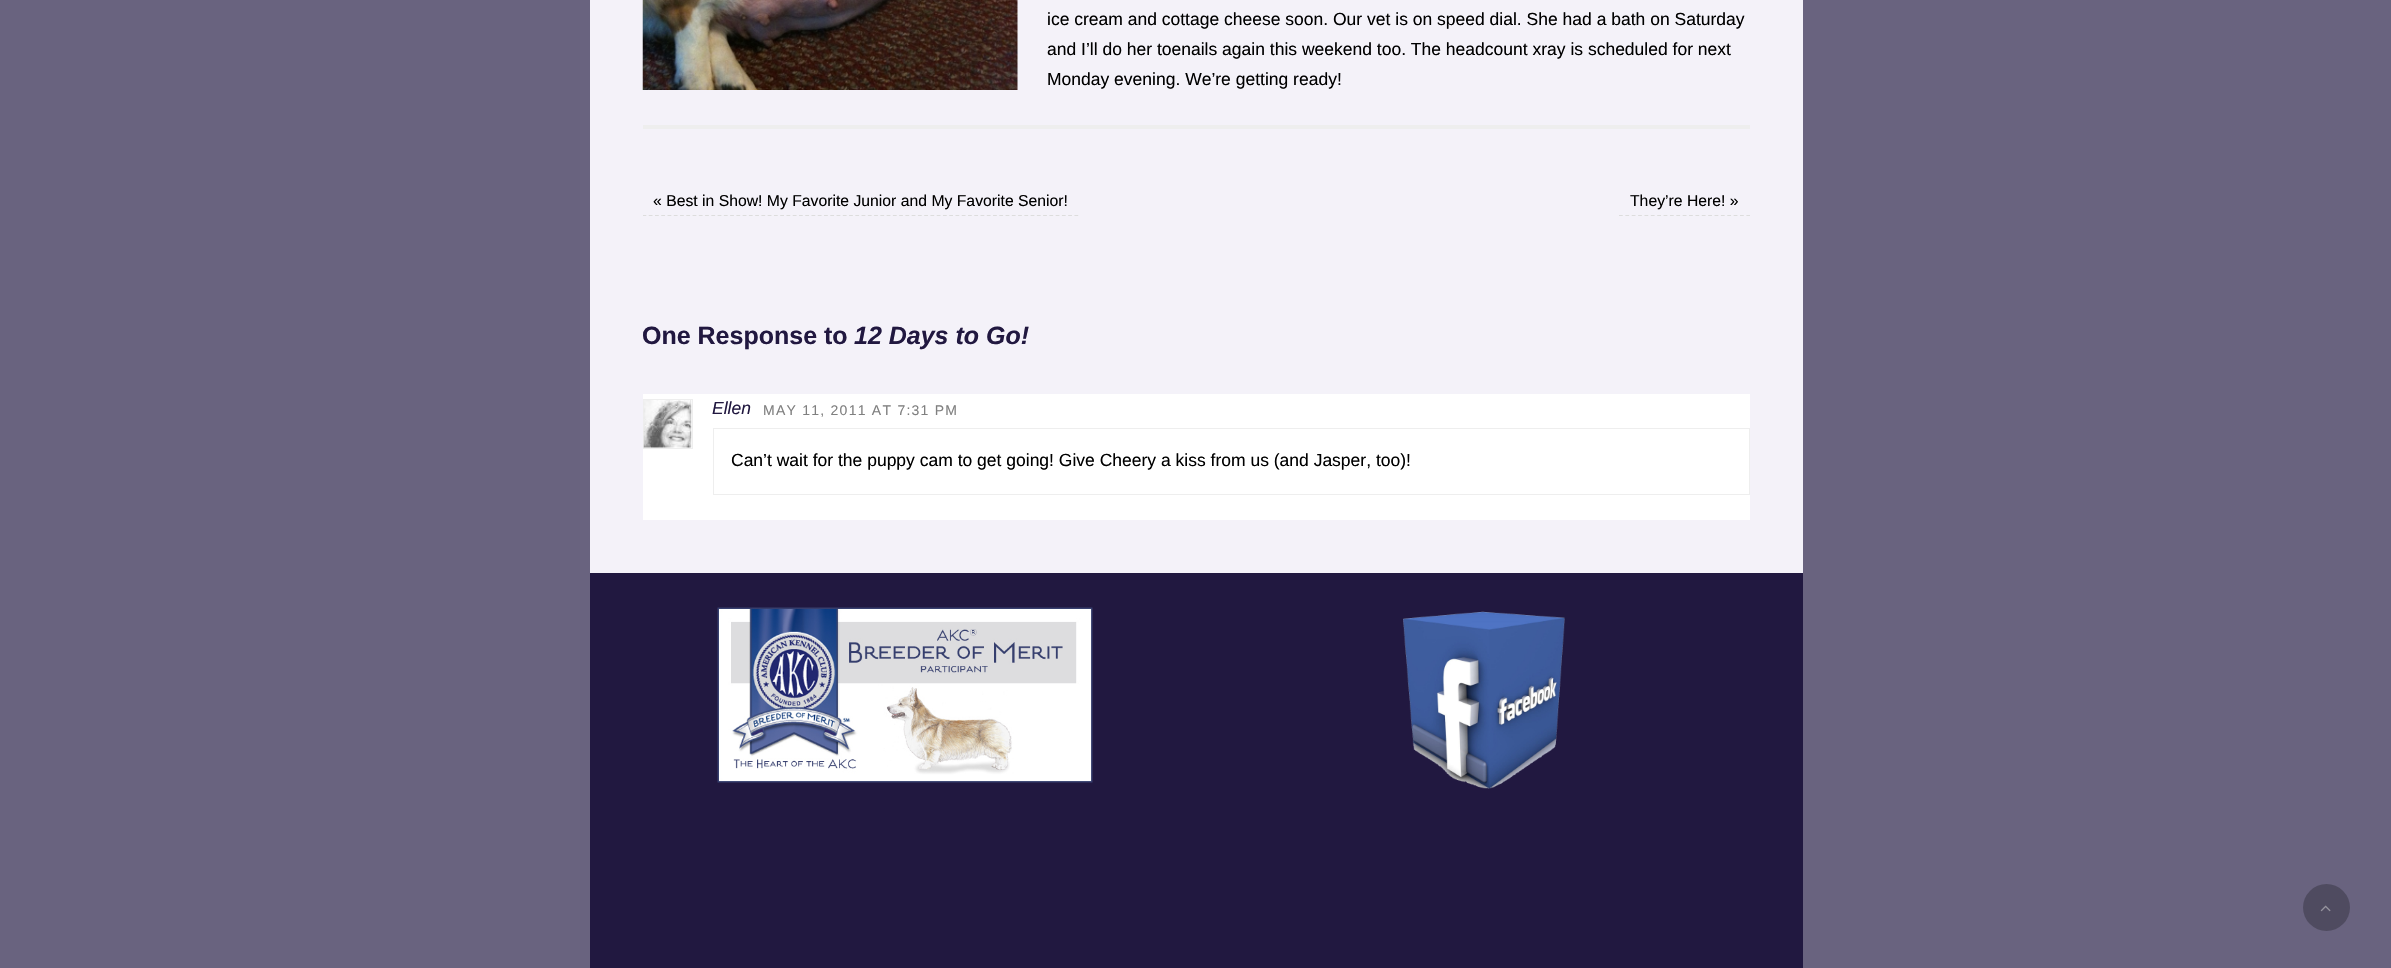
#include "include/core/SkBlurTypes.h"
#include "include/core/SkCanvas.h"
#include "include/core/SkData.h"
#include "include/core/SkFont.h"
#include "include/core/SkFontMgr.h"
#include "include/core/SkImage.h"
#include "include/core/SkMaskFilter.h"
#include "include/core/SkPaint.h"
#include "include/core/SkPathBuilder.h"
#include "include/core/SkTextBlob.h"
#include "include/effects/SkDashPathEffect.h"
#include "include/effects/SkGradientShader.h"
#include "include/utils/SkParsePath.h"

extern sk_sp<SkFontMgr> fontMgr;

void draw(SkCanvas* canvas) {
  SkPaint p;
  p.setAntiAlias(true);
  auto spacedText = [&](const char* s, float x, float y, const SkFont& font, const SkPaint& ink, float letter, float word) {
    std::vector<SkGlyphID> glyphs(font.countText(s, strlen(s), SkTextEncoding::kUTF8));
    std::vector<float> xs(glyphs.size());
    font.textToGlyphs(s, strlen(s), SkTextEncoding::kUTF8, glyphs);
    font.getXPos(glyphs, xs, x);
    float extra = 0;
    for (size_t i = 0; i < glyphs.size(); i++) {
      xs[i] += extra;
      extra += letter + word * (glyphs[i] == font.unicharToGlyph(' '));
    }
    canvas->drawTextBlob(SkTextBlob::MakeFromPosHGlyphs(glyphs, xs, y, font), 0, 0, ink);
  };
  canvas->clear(SkColorSetRGB(105, 99, 127));
  p.setColor(SkColorSetRGB(244, 242, 249));
  canvas->drawRect(SkRect::MakeLTRB(590, 0, 1803, 573), p);
  p.setColor(SkColorSetRGB(238, 238, 238));
  canvas->drawRect(SkRect::MakeLTRB(643, 125, 1750, 129), p);
  canvas->drawImageRect(SkImages::DeferredFromEncodedData(SkData::MakeFromFileName("images/1.png")), SkRect::MakeLTRB(642, 0, 1018, 90), SkSamplingOptions());
  canvas->save();
  canvas->clipRect(SkRect::MakeLTRB(643, 189, 1750, 216));
  p.setStyle(SkPaint::kStroke_Style);
  p.setStrokeWidth(1.2f);
  p.setColor(SkColorSetRGB(221, 221, 221));
  p.setPathEffect(SkDashPathEffect::Make({{3.75f, 2.51f}}, 0));
  canvas->drawPath(SkPathBuilder().moveTo(642.5f, 215.5f).lineTo(1079, 215.5f).detach(), p);
  p.setPathEffect(nullptr);
  p.setPathEffect(SkDashPathEffect::Make({{3.75f, 2.62f}}, 0));
  canvas->drawPath(SkPathBuilder().moveTo(1619, 215.5f).lineTo(1750, 215.5f).detach(), p);
  p.setPathEffect(nullptr);
  canvas->restore();
  p.setStyle(SkPaint::kFill_Style);
  p.setColor(SK_ColorWHITE);
  canvas->drawRect(SkRect::MakeLTRB(643, 394, 1750, 520), p);
  p.setStyle(SkPaint::kStroke_Style);
  p.setStrokeWidth(1);
  p.setColor(SkColorSetRGB(238, 238, 238));
  canvas->drawRect(SkRect::MakeLTRB(643.5f, 399.5f, 692.5f, 448.5f), p);
  canvas->drawImageRect(SkImages::DeferredFromEncodedData(SkData::MakeFromFileName("images/2.png")), SkRect::MakeLTRB(643, 400, 692, 448), SkSamplingOptions());
  canvas->drawRect(SkRect::MakeLTRB(713.5f, 428.5f, 1749.5f, 494.5f), p);
  p.setStyle(SkPaint::kFill_Style);
  p.setColor(SkColorSetRGB(33, 24, 64));
  canvas->drawRect(SkRect::MakeLTRB(590, 573, 1803, 968), p);
  canvas->drawImageRect(SkImages::DeferredFromEncodedData(SkData::MakeFromFileName("images/3.png")), SkRect::MakeLTRB(717, 607, 1093, 783), SkSamplingOptions());
  canvas->drawImageRect(SkImages::DeferredFromEncodedData(SkData::MakeFromFileName("images/4.png")), SkRect::MakeLTRB(1403, 611, 1565, 789), SkSamplingOptions());
  p.setColor(SkColorSetRGB(79, 75, 96));
  canvas->drawCircle(2326.5f, 907.5f, 23.5f, p);
  canvas->drawImageRect(SkImages::DeferredFromEncodedData(SkData::MakeFromFileName("images/5.png")), SkRect::MakeLTRB(2320, 905, 2331, 912), SkSamplingOptions());
  SkFont font1(fontMgr->matchFamilyStyle("Liberation Sans", SkFontStyle::Normal()), 17.5f);
  font1.setSubpixel(true);
  p.setColor(SK_ColorBLACK);
  canvas->drawString("ice cream and cottage cheese soon. Our vet is on speed dial. She had a bath on Saturday", 1047, 25, font1, p);
  canvas->drawString("and I’ll do her toenails again this weekend too. The headcount xray is scheduled for next", 1047, 55, font1, p);
  canvas->drawString("Monday evening. We’re getting ready!", 1047, 85, font1, p);
  SkFont font2(fontMgr->matchFamilyStyle("Liberation Sans", SkFontStyle::Normal()), 15.75f);
  font2.setSubpixel(true);
  canvas->drawString("« Best in Show! My Favorite Junior and My Favorite Senior!", 653, 206, font2, p);
  canvas->drawString("They’re Here! »", 1630, 206, font2, p);
  SkFont font3(fontMgr->matchFamilyStyle("Liberation Sans", SkFontStyle::Bold()), 25);
  font3.setSubpixel(true);
  p.setColor(SkColorSetRGB(33, 24, 64));
  canvas->drawString("One Response to", 642, 344, font3, p);
  SkFont font4(fontMgr->matchFamilyStyle("Liberation Sans", SkFontStyle::BoldItalic()), 25);
  font4.setSubpixel(true);
  canvas->drawString("12 Days to Go!", 854, 344, font4, p);
  SkFont font5(fontMgr->matchFamilyStyle("Liberation Sans", SkFontStyle::Italic()), 17.5f);
  font5.setSubpixel(true);
  canvas->drawString("Ellen", 712, 414, font5, p);
  SkFont font6(fontMgr->matchFamilyStyle("Liberation Sans", SkFontStyle::Normal()), 14);
  font6.setSubpixel(true);
  p.setColor(SkColorSetRGB(128, 128, 128));
  spacedText("MAY 11, 2011 AT 7:31 PM", 763, 415, font6, p, 1.25f, 0);
  p.setColor(SK_ColorBLACK);
  canvas->drawString("Can’t wait for the puppy cam to get going! Give Cheery a kiss from us (and Jasper, too)!", 731, 466, font1, p);
}
